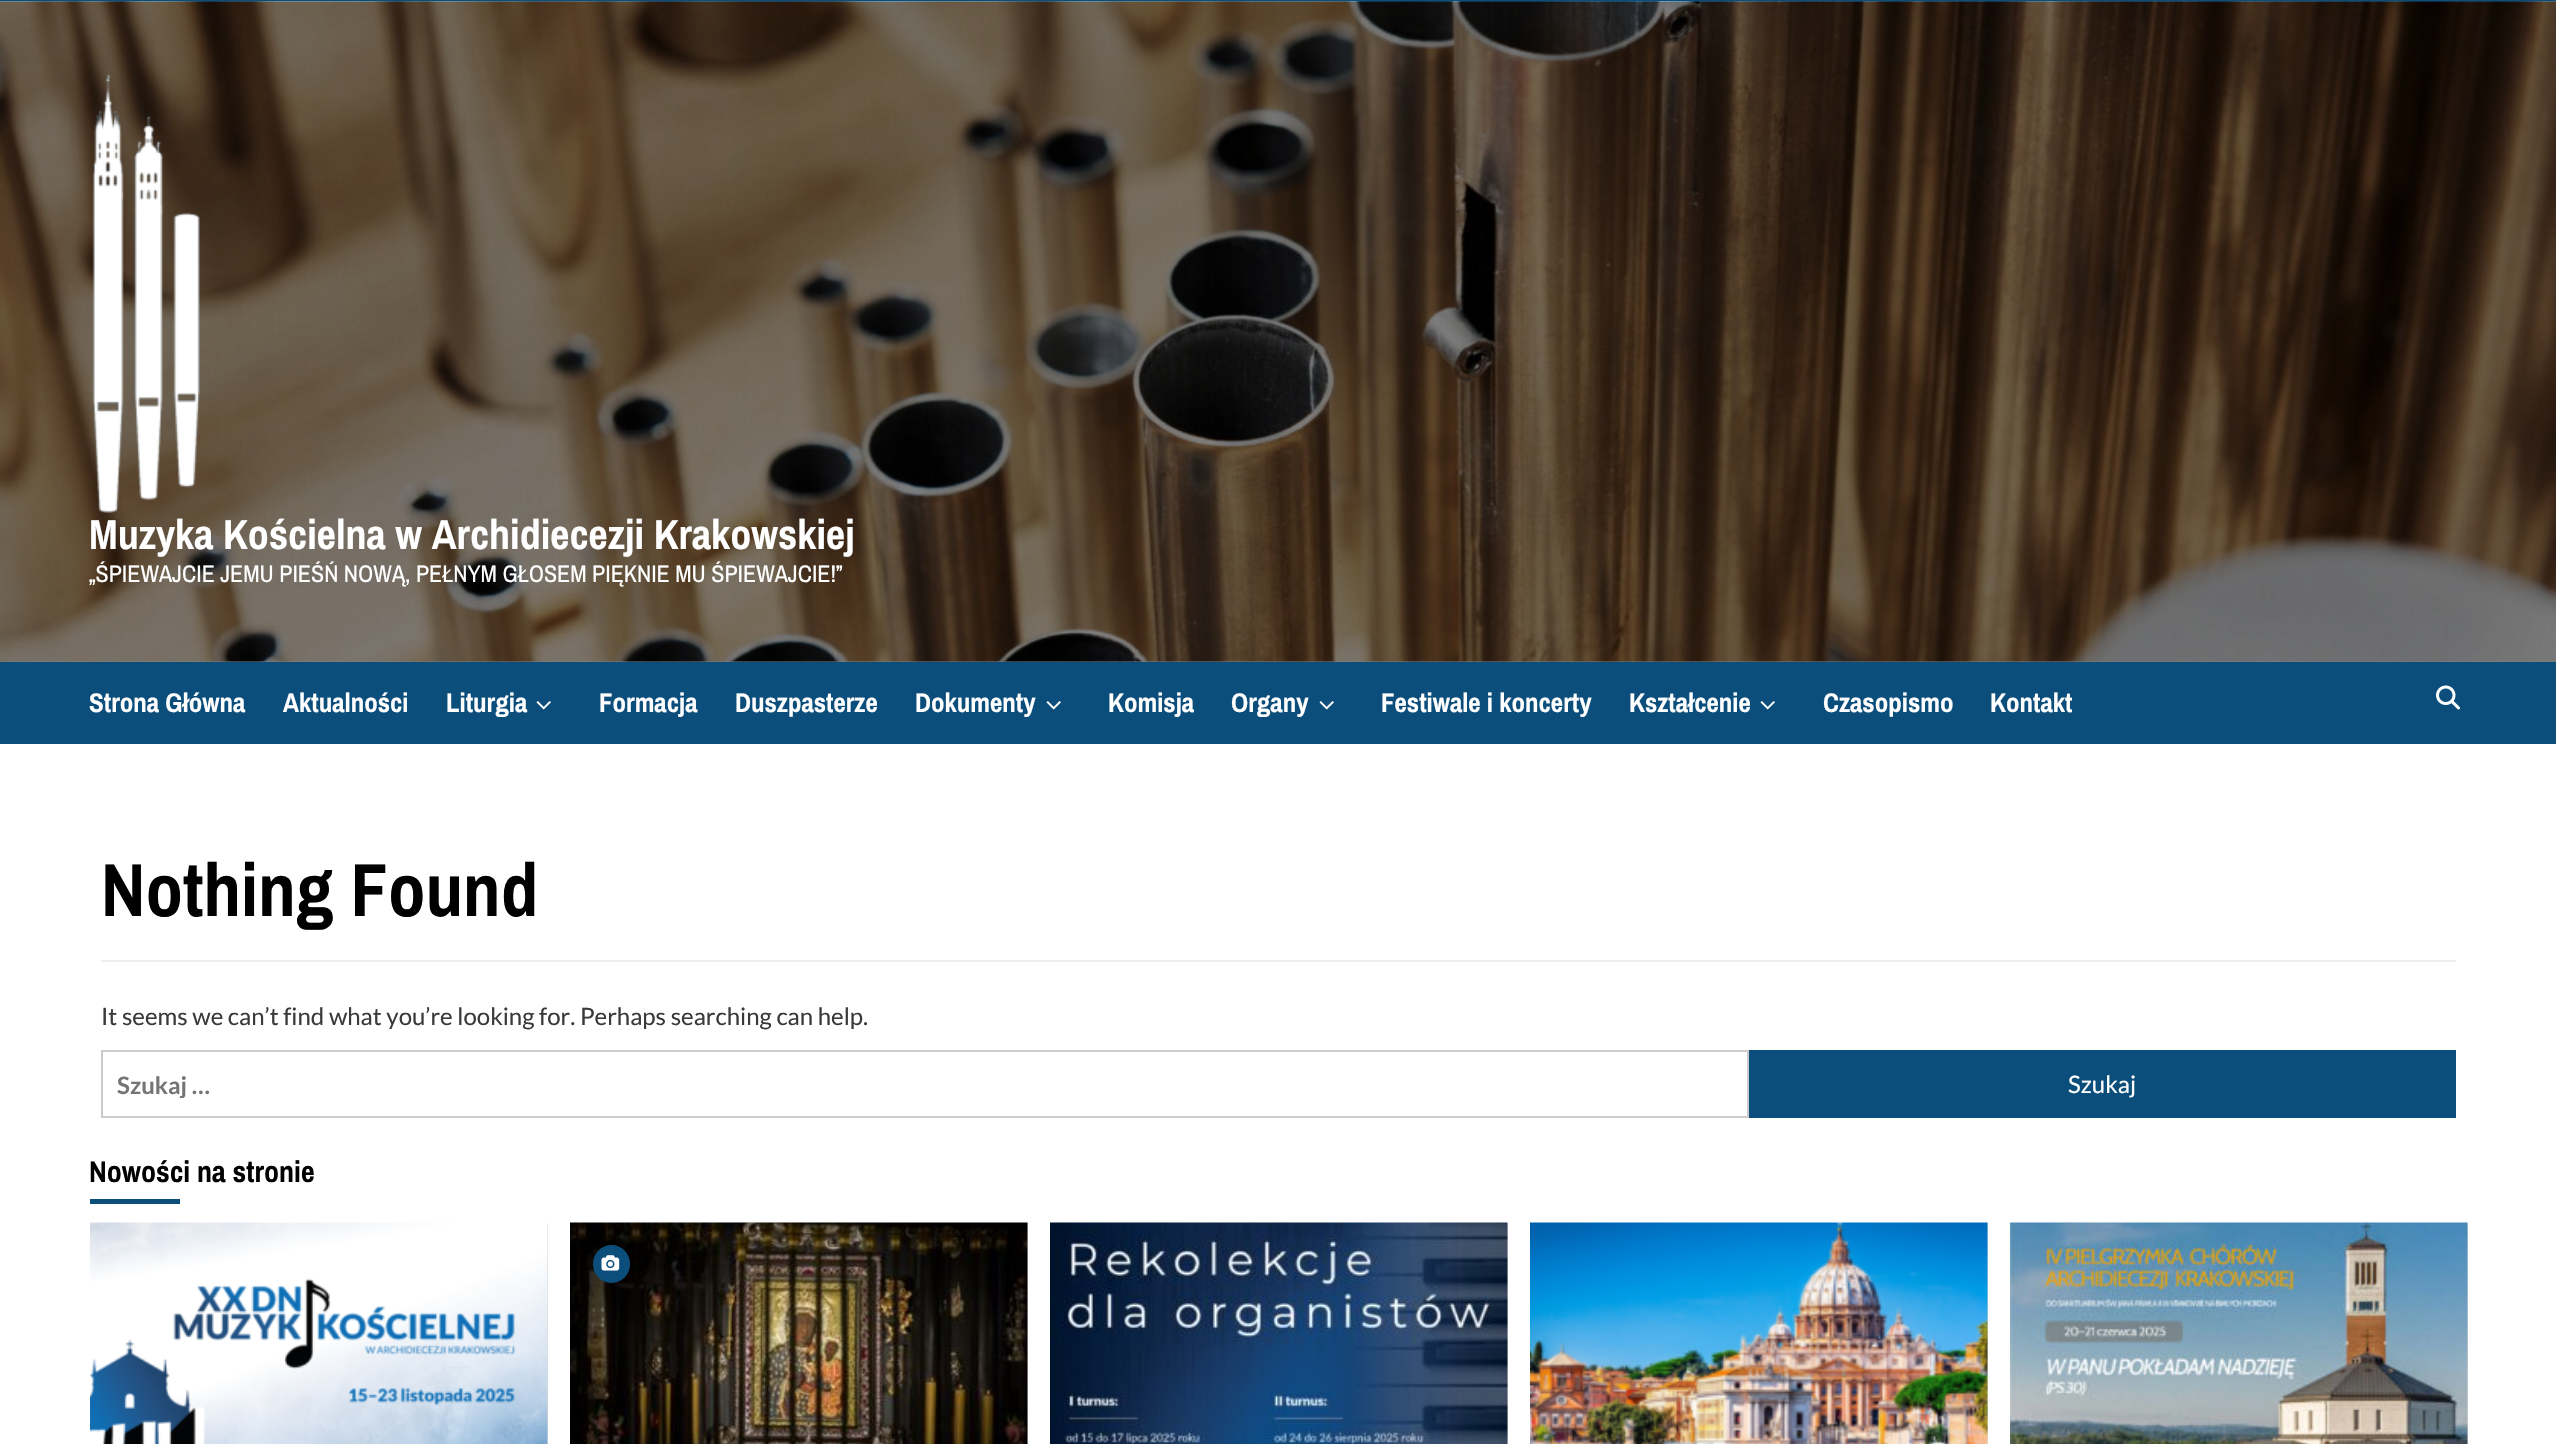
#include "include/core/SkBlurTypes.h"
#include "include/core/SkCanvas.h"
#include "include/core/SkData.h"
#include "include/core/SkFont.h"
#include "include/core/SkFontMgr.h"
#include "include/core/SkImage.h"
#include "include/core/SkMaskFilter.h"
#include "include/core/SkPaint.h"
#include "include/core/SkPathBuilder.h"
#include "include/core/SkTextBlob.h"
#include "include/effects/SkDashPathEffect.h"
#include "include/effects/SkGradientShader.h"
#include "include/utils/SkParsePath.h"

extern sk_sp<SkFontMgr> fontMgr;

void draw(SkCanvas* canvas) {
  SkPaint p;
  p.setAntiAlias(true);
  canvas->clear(SK_ColorWHITE);
  p.setColor(SkColorSetRGB(128, 128, 128));
  canvas->drawRect(SkRect::MakeLTRB(0, 661, 2556, 662), p);
  p.setColor(SkColorSetRGB(12, 78, 123));
  canvas->drawRect(SkRect::MakeLTRB(0, 0, 2556, 2), p);
  canvas->drawImageRect(SkImages::DeferredFromEncodedData(SkData::MakeFromFileName("images/1.png")), SkRect::MakeLTRB(0, 1, 2556, 662), SkSamplingOptions());
  canvas->drawImageRect(SkImages::DeferredFromEncodedData(SkData::MakeFromFileName("images/2.png")), SkRect::MakeLTRB(92, 73, 200, 513), SkSamplingOptions());
  canvas->drawRect(SkRect::MakeLTRB(0, 662, 2556, 744), p);
  canvas->drawImageRect(SkImages::DeferredFromEncodedData(SkData::MakeFromFileName("images/3.png")), SkRect::MakeLTRB(536, 701, 551, 710), SkSamplingOptions());
  canvas->drawImageRect(SkImages::DeferredFromEncodedData(SkData::MakeFromFileName("images/3.png")), SkRect::MakeLTRB(1046, 701, 1061, 710), SkSamplingOptions());
  canvas->drawImageRect(SkImages::DeferredFromEncodedData(SkData::MakeFromFileName("images/3.png")), SkRect::MakeLTRB(1319, 701, 1334, 710), SkSamplingOptions());
  canvas->drawImageRect(SkImages::DeferredFromEncodedData(SkData::MakeFromFileName("images/3.png")), SkRect::MakeLTRB(1760, 701, 1775, 710), SkSamplingOptions());
  canvas->drawImageRect(SkImages::DeferredFromEncodedData(SkData::MakeFromFileName("images/4.png")), SkRect::MakeLTRB(2436, 685, 2460, 710), SkSamplingOptions());
  p.setColor(SkColorSetRGB(238, 238, 238));
  canvas->drawRect(SkRect::MakeLTRB(101, 960, 2456, 962), p);
  p.setStyle(SkPaint::kStroke_Style);
  p.setStrokeWidth(2);
  p.setColor(SkColorSetRGB(204, 204, 204));
  canvas->drawRect(SkRect::MakeLTRB(102, 1051, 1748, 1117), p);
  p.setStyle(SkPaint::kFill_Style);
  p.setColor(SkColorSetRGB(12, 78, 123));
  canvas->drawRect(SkRect::MakeLTRB(1749, 1050, 2456, 1118), p);
  canvas->drawRect(SkRect::MakeLTRB(90, 1199, 180, 1204), p);
  p.setColor(SkColorSetRGB(216, 216, 216));
  canvas->drawRect(SkRect::MakeLTRB(90, 1223, 548, 1444), p);
  canvas->drawImageRect(SkImages::DeferredFromEncodedData(SkData::MakeFromFileName("images/5.png")), SkRect::MakeLTRB(90, 1222, 548, 1444), SkSamplingOptions());
  canvas->drawRect(SkRect::MakeLTRB(1027, 1223, 1028, 1444), p);
  canvas->drawImageRect(SkImages::DeferredFromEncodedData(SkData::MakeFromFileName("images/6.png")), SkRect::MakeLTRB(570, 1222, 1028, 1444), SkSamplingOptions());
  p.setColor(SkColorSetRGB(12, 78, 123));
  canvas->drawRoundRect(SkRect::MakeLTRB(593, 1245, 630, 1283), 18.5f, 18.5f, p);
  canvas->drawImageRect(SkImages::DeferredFromEncodedData(SkData::MakeFromFileName("images/7.png")), SkRect::MakeLTRB(601, 1255, 620, 1271), SkSamplingOptions());
  p.setColor(SkColorSetRGB(216, 216, 216));
  canvas->drawRect(SkRect::MakeLTRB(1507, 1223, 1508, 1444), p);
  canvas->drawImageRect(SkImages::DeferredFromEncodedData(SkData::MakeFromFileName("images/8.png")), SkRect::MakeLTRB(1050, 1222, 1508, 1444), SkSamplingOptions());
  canvas->drawRect(SkRect::MakeLTRB(1987, 1223, 1988, 1444), p);
  canvas->drawImageRect(SkImages::DeferredFromEncodedData(SkData::MakeFromFileName("images/9.png")), SkRect::MakeLTRB(1530, 1222, 1988, 1444), SkSamplingOptions());
  canvas->drawRect(SkRect::MakeLTRB(2467, 1223, 2468, 1444), p);
  canvas->drawImageRect(SkImages::DeferredFromEncodedData(SkData::MakeFromFileName("images/10.png")), SkRect::MakeLTRB(2010, 1222, 2468, 1444), SkSamplingOptions());
  SkFont font1(fontMgr->matchFamilyStyle("Archivo Narrow", SkFontStyle::Bold()), 42);
  font1.setSubpixel(true);
  p.setColor(SK_ColorWHITE);
  canvas->drawString("Muzyka Kościelna w Archidiecezji Krakowskiej", 89, 549, font1, p);
  SkFont font2(fontMgr->matchFamilyStyle("Archivo Narrow", SkFontStyle::Normal()), 24);
  font2.setSubpixel(true);
  canvas->drawString("„ŚPIEWAJCIE JEMU PIEŚŃ NOWĄ, PEŁNYM GŁOSEM PIĘKNIE MU ŚPIEWAJCIE!”", 89, 582, font2, p);
  SkFont font3(fontMgr->matchFamilyStyle("Archivo Narrow", SkFontStyle::Bold()), 27);
  font3.setSubpixel(true);
  canvas->drawString("Strona Główna", 89, 712, font3, p);
  canvas->drawString("Aktualności", 283, 712, font3, p);
  canvas->drawString("Liturgia", 446, 712, font3, p);
  canvas->drawString("Formacja", 599, 712, font3, p);
  canvas->drawString("Duszpasterze", 735, 712, font3, p);
  canvas->drawString("Dokumenty", 915, 712, font3, p);
  canvas->drawString("Komisja", 1108, 712, font3, p);
  canvas->drawString("Organy", 1231, 712, font3, p);
  canvas->drawString("Festiwale i koncerty", 1381, 712, font3, p);
  canvas->drawString("Kształcenie", 1629, 712, font3, p);
  canvas->drawString("Czasopismo", 1823, 712, font3, p);
  canvas->drawString("Kontakt", 1990, 712, font3, p);
  SkFont font4(fontMgr->matchFamilyStyle("Archivo Narrow", SkFontStyle::Bold()), 75);
  font4.setSubpixel(true);
  p.setColor(SK_ColorBLACK);
  canvas->drawString("Nothing Found", 101, 916, font4, p);
  SkFont font5(fontMgr->matchFamilyStyle("Lato", SkFontStyle::Normal()), 24);
  font5.setSubpixel(true);
  p.setColor(SkColorSetRGB(58, 58, 58));
  canvas->drawString("It seems we can’t find what you’re looking for. Perhaps searching can help.", 101, 1025, font5, p);
  canvas->save();
  canvas->clipRect(SkRect::MakeLTRB(117, 1070, 1727, 1098));
  SkFont font6(fontMgr->matchFamilyStyle("Lato", SkFontStyle::Bold()), 24);
  font6.setSubpixel(true);
  p.setColor(SkColorSetRGB(117, 117, 117));
  canvas->drawString("Szukaj …", 117, 1094, font6, p);
  canvas->restore();
  p.setColor(SK_ColorWHITE);
  canvas->drawString("Szukaj", 2068, 1093, font5, p);
  SkFont font7(fontMgr->matchFamilyStyle("Archivo Narrow", SkFontStyle::Bold()), 30);
  font7.setSubpixel(true);
  p.setColor(SK_ColorBLACK);
  canvas->drawString("Nowości na stronie", 89, 1182, font7, p);
}
